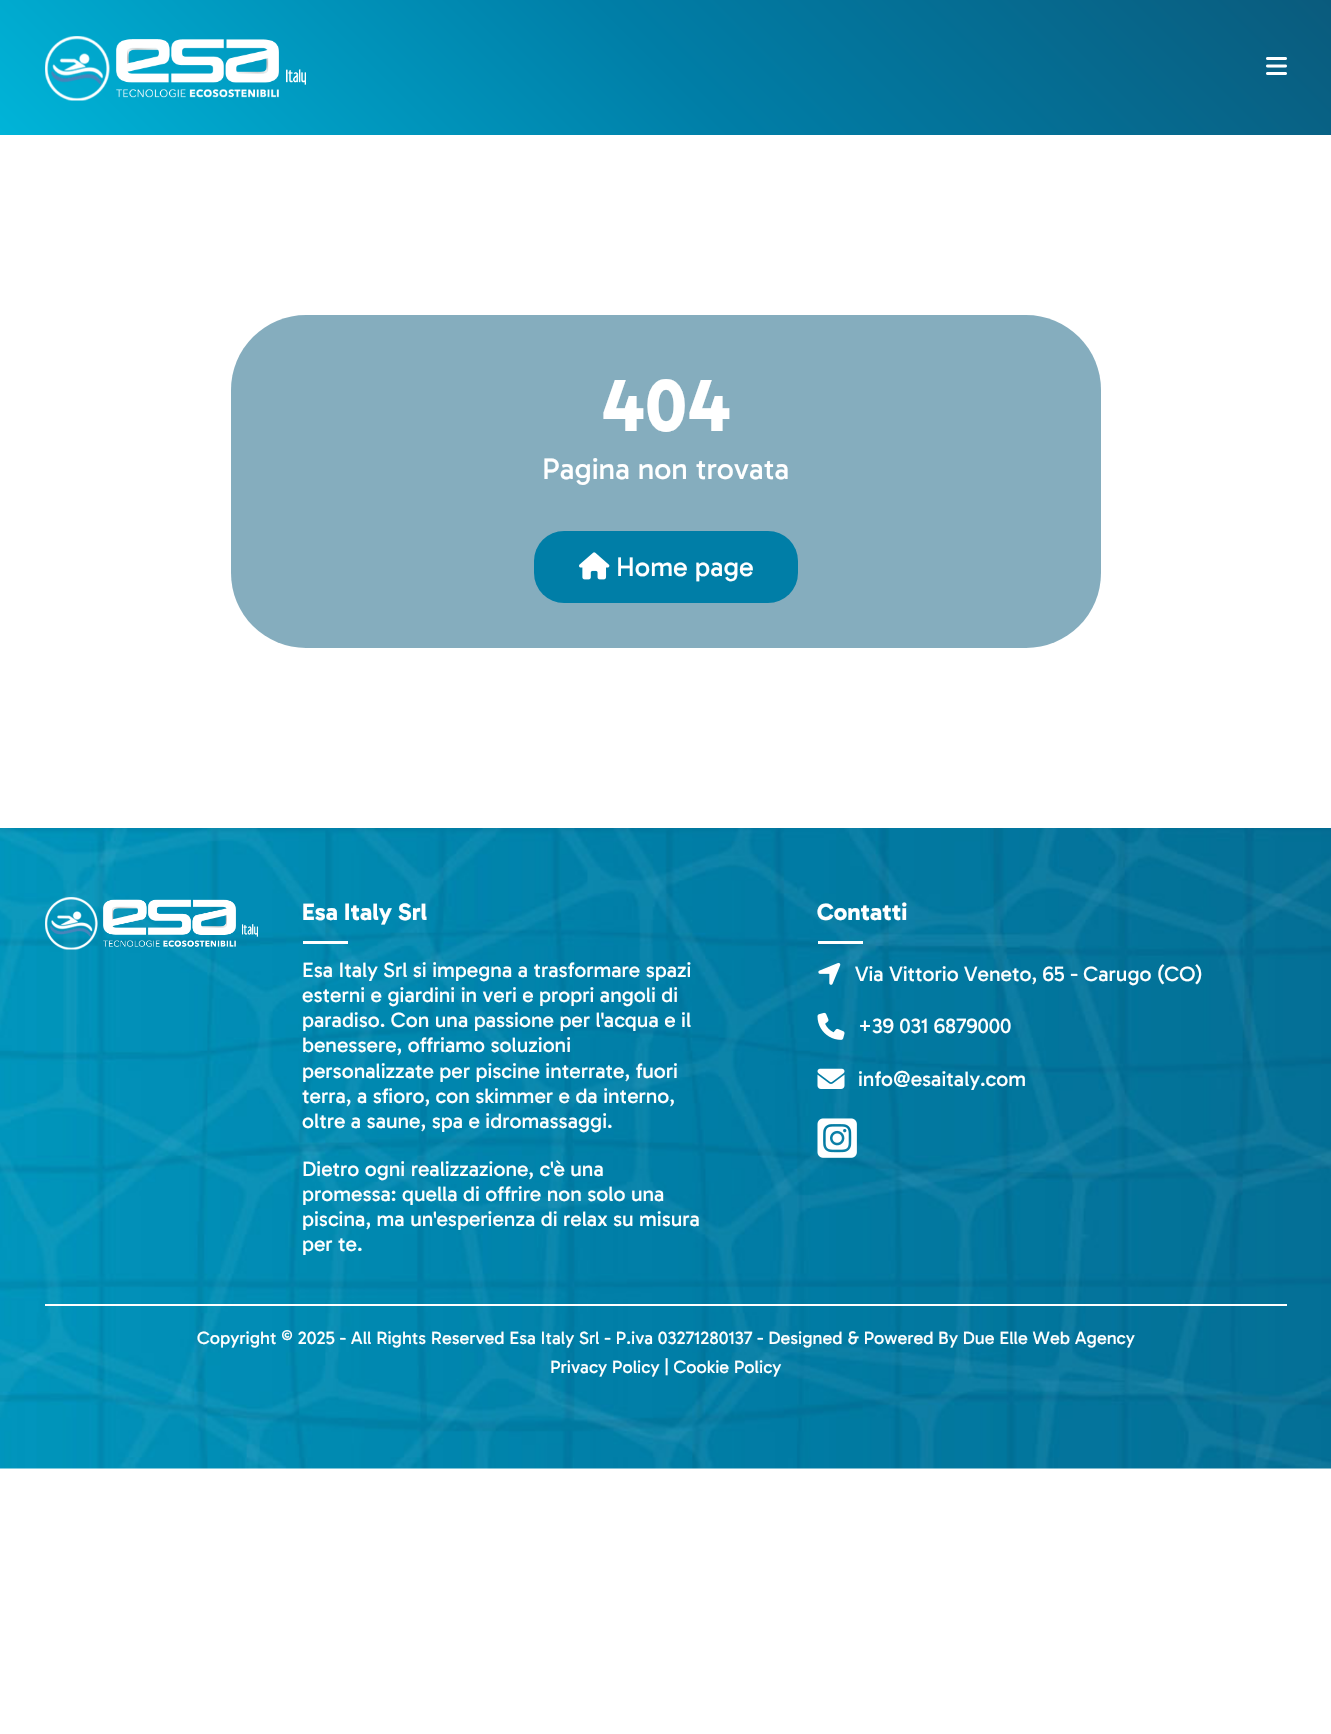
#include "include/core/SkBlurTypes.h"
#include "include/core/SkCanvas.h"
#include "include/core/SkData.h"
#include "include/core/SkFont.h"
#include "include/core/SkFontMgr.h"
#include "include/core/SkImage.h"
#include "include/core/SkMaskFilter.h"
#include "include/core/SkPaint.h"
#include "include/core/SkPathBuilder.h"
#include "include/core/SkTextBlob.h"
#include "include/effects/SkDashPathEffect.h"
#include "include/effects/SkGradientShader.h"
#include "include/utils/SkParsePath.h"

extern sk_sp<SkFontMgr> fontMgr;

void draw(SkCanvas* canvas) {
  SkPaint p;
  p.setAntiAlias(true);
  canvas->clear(SK_ColorWHITE);
  {
    const SkColor colors[] = {SkColorSetRGB(0, 180, 216), SkColorSetRGB(0, 126, 167), SkColorSetRGB(10, 91, 125)};
    const float stops[] = {0, 0.5f, 1};
    const SkPoint ends[] = {{299, 434}, {1033, -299}};
    p.setShader(SkGradientShader::MakeLinear(ends, colors, stops, 3, SkTileMode::kClamp));
    p.setAlpha(255);
  }
  canvas->drawRect(SkRect::MakeLTRB(0, 0, 1331, 135), p);
  canvas->drawImageRect(SkImages::DeferredFromEncodedData(SkData::MakeFromFileName("images/1.png")), SkRect::MakeLTRB(45, 36, 306, 101), SkSamplingOptions());
  canvas->drawImageRect(SkImages::DeferredFromEncodedData(SkData::MakeFromFileName("images/2.png")), SkRect::MakeLTRB(1266, 57, 1287, 75), SkSamplingOptions());
  p.setShader(nullptr);
  p.setColor(SkColorSetRGB(133, 173, 190));
  canvas->drawRoundRect(SkRect::MakeLTRB(231, 315, 1101, 648), 75, 75, p);
  p.setColor(SkColorSetRGB(0, 126, 167));
  canvas->drawRoundRect(SkRect::MakeLTRB(534, 531, 798, 603), 30, 30, p);
  canvas->drawImageRect(SkImages::DeferredFromEncodedData(SkData::MakeFromFileName("images/3.png")), SkRect::MakeLTRB(579, 552, 610, 580), SkSamplingOptions());
  canvas->drawImageRect(SkImages::DeferredFromEncodedData(SkData::MakeFromFileName("images/4.png")), SkRect::MakeLTRB(0, 828, 1331, 1469), SkSamplingOptions());
  canvas->drawImageRect(SkImages::DeferredFromEncodedData(SkData::MakeFromFileName("images/5.png")), SkRect::MakeLTRB(45, 897, 258, 950), SkSamplingOptions());
  p.setColor(SK_ColorWHITE);
  canvas->drawRect(SkRect::MakeLTRB(303, 941, 348, 944), p);
  canvas->drawRect(SkRect::MakeLTRB(818, 941, 863, 944), p);
  canvas->drawImageRect(SkImages::DeferredFromEncodedData(SkData::MakeFromFileName("images/6.png")), SkRect::MakeLTRB(818, 962, 841, 985), SkSamplingOptions());
  canvas->drawImageRect(SkImages::DeferredFromEncodedData(SkData::MakeFromFileName("images/7.png")), SkRect::MakeLTRB(817, 1012, 845, 1040), SkSamplingOptions());
  canvas->drawImageRect(SkImages::DeferredFromEncodedData(SkData::MakeFromFileName("images/8.png")), SkRect::MakeLTRB(817, 1068, 845, 1089), SkSamplingOptions());
  canvas->drawImageRect(SkImages::DeferredFromEncodedData(SkData::MakeFromFileName("images/9.png")), SkRect::MakeLTRB(817, 1118, 857, 1158), SkSamplingOptions());
  canvas->drawRect(SkRect::MakeLTRB(45, 1304, 1287, 1306), p);
  SkFont font1(fontMgr->matchFamilyStyle("Gabarito", SkFontStyle::Bold()), 75);
  font1.setSubpixel(true);
  canvas->drawString("404", 601, 431, font1, p);
  SkFont font2(fontMgr->matchFamilyStyle("Gabarito", SkFontStyle::Normal()), 30);
  font2.setSubpixel(true);
  canvas->drawString("Pagina non trovata", 542, 479, font2, p);
  SkFont font3(fontMgr->matchFamilyStyle("Gabarito", SkFontStyle::Normal()), 27);
  font3.setSubpixel(true);
  canvas->drawString("Home page", 616, 576, font3, p);
  SkFont font4(fontMgr->matchFamilyStyle("Gabarito", SkFontStyle::Bold()), 24);
  font4.setSubpixel(true);
  canvas->drawString("Esa Italy Srl", 302, 920, font4, p);
  SkFont font5(fontMgr->matchFamilyStyle("Gabarito", SkFontStyle::Normal()), 21);
  font5.setSubpixel(true);
  canvas->drawString("Esa Italy Srl si impegna a trasformare spazi", 302, 977, font5, p);
  canvas->drawString("esterni e giardini in veri e propri angoli di", 302, 1002, font5, p);
  canvas->drawString("paradiso. Con una passione per l'acqua e il", 302, 1027, font5, p);
  canvas->drawString("benessere, offriamo soluzioni", 302, 1052, font5, p);
  canvas->drawString("personalizzate per piscine interrate, fuori", 302, 1078, font5, p);
  canvas->drawString("terra, a sfioro, con skimmer e da interno,", 302, 1103, font5, p);
  canvas->drawString("oltre a saune, spa e idromassaggi.", 302, 1128, font5, p);
  canvas->drawString("Dietro ogni realizzazione, c'è una", 302, 1176, font5, p);
  canvas->drawString("promessa: quella di offrire non solo una", 302, 1201, font5, p);
  canvas->drawString("piscina, ma un'esperienza di relax su misura", 302, 1226, font5, p);
  canvas->drawString("per te.", 302, 1251, font5, p);
  canvas->drawString("Contatti", 817, 920, font4, p);
  canvas->drawString("Via Vittorio Veneto, 65 - Carugo (CO)", 855, 981, font5, p);
  canvas->drawString("+39 031 6879000", 858, 1033, font5, p);
  canvas->drawString("info@esaitaly.com", 858, 1086, font5, p);
  SkFont font6(fontMgr->matchFamilyStyle("Gabarito", SkFontStyle::Normal()), 18);
  font6.setSubpixel(true);
  canvas->drawString("Copyright © 2025 - All Rights Reserved Esa Italy Srl - P.iva 03271280137 - Designed & Powered By Due Elle Web Agency", 197, 1344, font6, p);
  canvas->drawString("Privacy Policy | Cookie Policy", 550, 1373, font6, p);
}
